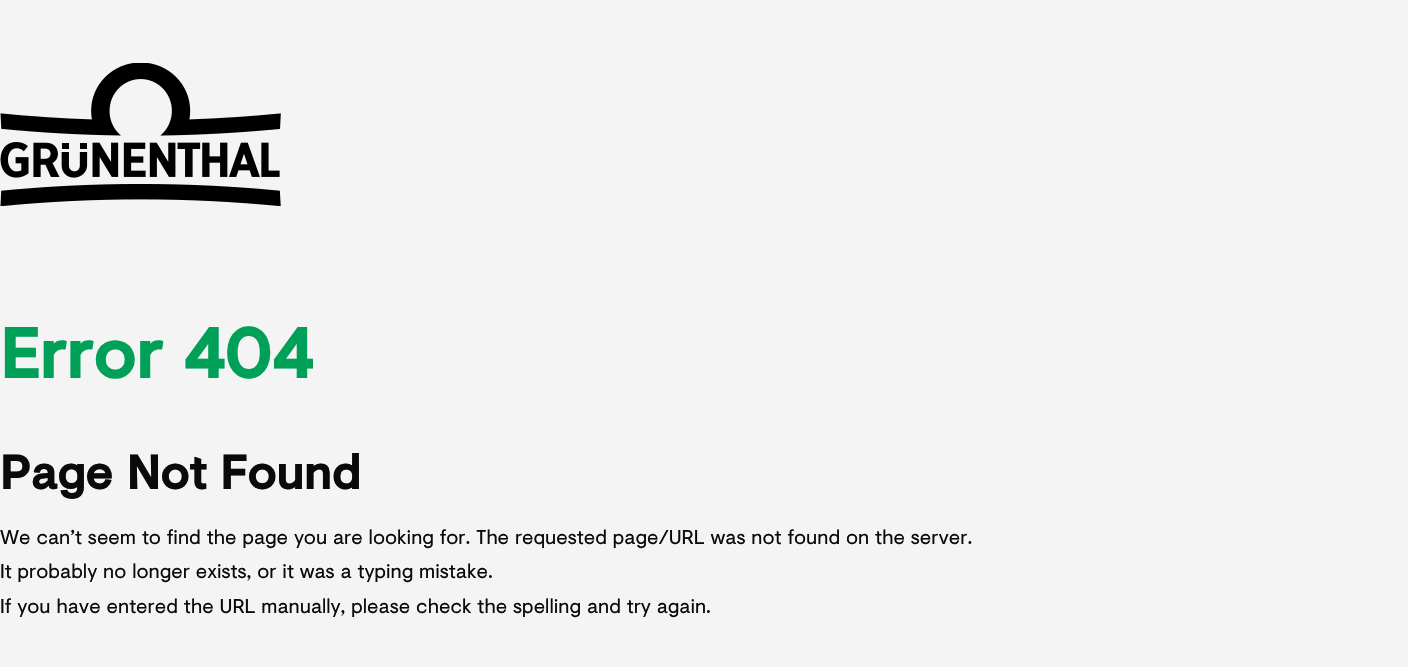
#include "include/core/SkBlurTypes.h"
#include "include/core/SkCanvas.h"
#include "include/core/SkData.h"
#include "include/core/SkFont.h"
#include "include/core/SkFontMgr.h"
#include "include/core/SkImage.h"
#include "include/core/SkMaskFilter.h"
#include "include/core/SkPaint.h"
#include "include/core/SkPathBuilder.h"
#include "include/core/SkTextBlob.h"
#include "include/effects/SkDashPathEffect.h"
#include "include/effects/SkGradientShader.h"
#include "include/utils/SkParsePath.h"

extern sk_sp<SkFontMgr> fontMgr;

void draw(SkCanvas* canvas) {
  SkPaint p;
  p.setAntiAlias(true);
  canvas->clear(SkColorSetRGB(244, 244, 244));
  canvas->drawImageRect(SkImages::DeferredFromEncodedData(SkData::MakeFromFileName("images/1.png")), SkRect::MakeLTRB(0, 63, 281, 206), SkSamplingOptions());
  SkFont font1(fontMgr->matchFamilyStyle("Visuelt", SkFontStyle::Bold()), 70);
  font1.setSubpixel(true);
  p.setColor(SkColorSetRGB(0, 160, 89));
  canvas->drawString("Error 404", 0, 378, font1, p);
  SkFont font2(fontMgr->matchFamilyStyle("Visuelt", SkFontStyle::Bold()), 47.5f);
  font2.setSubpixel(true);
  p.setColor(SkColorSetRGB(10, 10, 10));
  canvas->drawString("Page Not Found", 0, 489, font2, p);
  SkFont font3(fontMgr->matchFamilyStyle("Visuelt", SkFontStyle::Normal()), 20);
  font3.setSubpixel(true);
  canvas->drawString("We can’t seem to find the page you are looking for. The requested page/URL was not found on the server.", 0, 544, font3, p);
  canvas->drawString("It probably no longer exists, or it was a typing mistake.", 0, 578, font3, p);
  canvas->drawString("If you have entered the URL manually, please check the spelling and try again.", 0, 613, font3, p);
}
